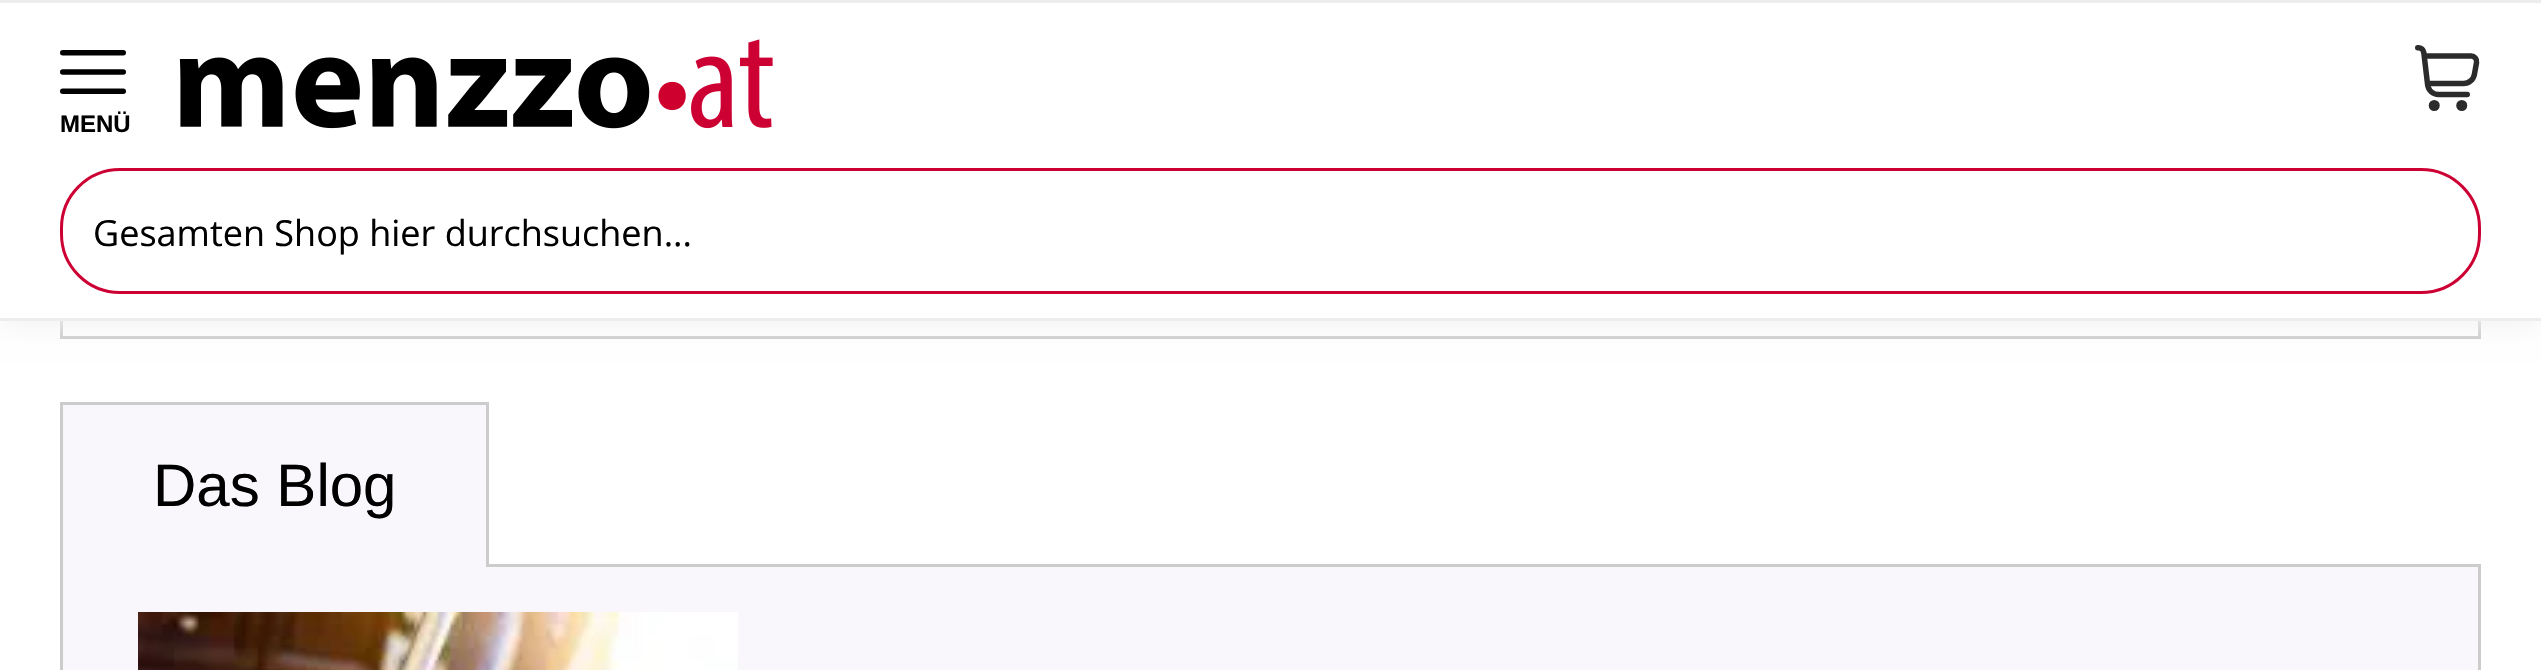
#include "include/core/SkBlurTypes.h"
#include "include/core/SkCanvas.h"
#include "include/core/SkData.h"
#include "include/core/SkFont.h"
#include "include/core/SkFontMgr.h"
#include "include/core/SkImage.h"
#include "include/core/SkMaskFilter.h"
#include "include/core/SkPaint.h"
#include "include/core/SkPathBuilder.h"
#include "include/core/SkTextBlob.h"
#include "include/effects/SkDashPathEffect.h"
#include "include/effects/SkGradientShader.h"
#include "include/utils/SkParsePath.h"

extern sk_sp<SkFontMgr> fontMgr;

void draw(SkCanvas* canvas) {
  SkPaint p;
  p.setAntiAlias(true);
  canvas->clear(SK_ColorWHITE);
  p.setStyle(SkPaint::kStroke_Style);
  p.setStrokeWidth(3);
  p.setColor(SkColorSetRGB(204, 204, 204));
  canvas->drawRect(SkRect::MakeLTRB(61.5f, -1.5f, 2479.5f, 337.5f), p);
  p.setStyle(SkPaint::kFill_Style);
  p.setColor(SkColorSetRGB(241, 241, 241));
  p.setMaskFilter(SkMaskFilter::MakeBlur(kNormal_SkBlurStyle, 13.5f));
  canvas->drawRect(SkRect::MakeLTRB(0, 3, 2541, 324), p);
  p.setMaskFilter(nullptr);
  p.setColor(SK_ColorWHITE);
  canvas->drawRect(SkRect::MakeLTRB(0, 3, 2541, 318), p);
  p.setColor(SkColorSetRGB(237, 237, 237));
  canvas->drawRect(SkRect::MakeLTRB(0, 0, 2541, 3), p);
  canvas->drawRect(SkRect::MakeLTRB(0, 318, 2541, 321), p);
  canvas->drawImageRect(SkImages::DeferredFromEncodedData(SkData::MakeFromFileName("images/1.png")), SkRect::MakeLTRB(179, 39, 773, 129), SkSamplingOptions());
  canvas->drawImageRect(SkImages::DeferredFromEncodedData(SkData::MakeFromFileName("images/2.png")), SkRect::MakeLTRB(2415, 45, 2480, 111), SkSamplingOptions());
  canvas->drawImageRect(SkImages::DeferredFromEncodedData(SkData::MakeFromFileName("images/3.png")), SkRect::MakeLTRB(60, 50, 126, 94), SkSamplingOptions());
  p.setStyle(SkPaint::kStroke_Style);
  p.setColor(SkColorSetRGB(204, 0, 51));
  canvas->drawRoundRect(SkRect::MakeLTRB(61.5f, 169.5f, 2479.5f, 292.5f), 58.5f, 58.5f, p);
  p.setStyle(SkPaint::kFill_Style);
  p.setColor(SkColorSetRGB(249, 247, 251));
  canvas->drawRect(SkRect::MakeLTRB(61.5f, 565.5f, 2479.5f, 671.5f), p);
  p.setStyle(SkPaint::kStroke_Style);
  p.setColor(SkColorSetRGB(204, 204, 204));
  canvas->drawRect(SkRect::MakeLTRB(61.5f, 565.5f, 2479.5f, 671.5f), p);
  p.setStyle(SkPaint::kFill_Style);
  p.setColor(SkColorSetRGB(249, 247, 251));
  canvas->drawRect(SkRect::MakeLTRB(63, 405, 486, 567), p);
  p.setColor(SkColorSetRGB(204, 204, 204));
  canvas->drawRect(SkRect::MakeLTRB(60, 402, 489, 405), p);
  canvas->drawRect(SkRect::MakeLTRB(486, 402, 489, 567), p);
  canvas->drawRect(SkRect::MakeLTRB(60, 402, 63, 567), p);
  canvas->drawImageRect(SkImages::DeferredFromEncodedData(SkData::MakeFromFileName("images/4.png")), SkRect::MakeLTRB(138, 612, 738, 670), SkSamplingOptions());
  SkFont font1(fontMgr->matchFamilyStyle("Liberation Sans", SkFontStyle::Bold()), 24);
  font1.setSubpixel(true);
  p.setColor(SK_ColorBLACK);
  canvas->drawString("MENÜ", 60, 132, font1, p);
  SkFont font2(fontMgr->matchFamilyStyle("Open Sans", SkFontStyle::Normal()), 36);
  font2.setSubpixel(true);
  canvas->drawString("Gesamten Shop hier durchsuchen...", 93, 246, font2, p);
  SkFont font3(fontMgr->matchFamilyStyle("Liberation Sans", SkFontStyle::Normal()), 60);
  font3.setSubpixel(true);
  canvas->drawString("Das Blog", 153, 506, font3, p);
}
